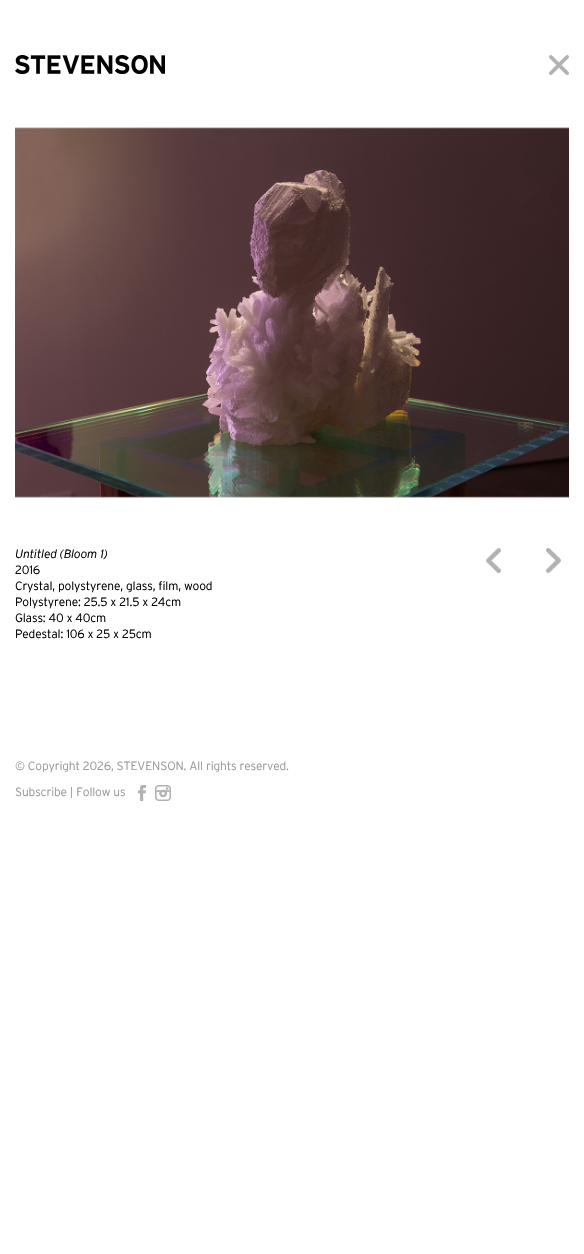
#include "include/core/SkBlurTypes.h"
#include "include/core/SkCanvas.h"
#include "include/core/SkData.h"
#include "include/core/SkFont.h"
#include "include/core/SkFontMgr.h"
#include "include/core/SkImage.h"
#include "include/core/SkMaskFilter.h"
#include "include/core/SkPaint.h"
#include "include/core/SkPathBuilder.h"
#include "include/core/SkTextBlob.h"
#include "include/effects/SkDashPathEffect.h"
#include "include/effects/SkGradientShader.h"
#include "include/utils/SkParsePath.h"

extern sk_sp<SkFontMgr> fontMgr;

void draw(SkCanvas* canvas) {
  SkPaint p;
  p.setAntiAlias(true);
  auto spacedText = [&](const char* s, float x, float y, const SkFont& font, const SkPaint& ink, float letter, float word) {
    std::vector<SkGlyphID> glyphs(font.countText(s, strlen(s), SkTextEncoding::kUTF8));
    std::vector<float> xs(glyphs.size());
    font.textToGlyphs(s, strlen(s), SkTextEncoding::kUTF8, glyphs);
    font.getXPos(glyphs, xs, x);
    float extra = 0;
    for (size_t i = 0; i < glyphs.size(); i++) {
      xs[i] += extra;
      extra += letter + word * (glyphs[i] == font.unicharToGlyph(' '));
    }
    canvas->drawTextBlob(SkTextBlob::MakeFromPosHGlyphs(glyphs, xs, y, font), 0, 0, ink);
  };
  canvas->clear(SK_ColorWHITE);
  canvas->drawImageRect(SkImages::DeferredFromEncodedData(SkData::MakeFromFileName("images/1.png")), SkRect::MakeLTRB(15, 55, 165, 74), SkSamplingOptions());
  canvas->drawImageRect(SkImages::DeferredFromEncodedData(SkData::MakeFromFileName("images/2.png")), SkRect::MakeLTRB(549, 55, 569, 75), SkSamplingOptions());
  canvas->drawImageRect(SkImages::DeferredFromEncodedData(SkData::MakeFromFileName("images/3.png")), SkRect::MakeLTRB(15, 127, 569, 498), SkSamplingOptions());
  canvas->drawImageRect(SkImages::DeferredFromEncodedData(SkData::MakeFromFileName("images/4.png")), SkRect::MakeLTRB(486, 548, 501, 573), SkSamplingOptions());
  canvas->drawImageRect(SkImages::DeferredFromEncodedData(SkData::MakeFromFileName("images/5.png")), SkRect::MakeLTRB(546, 548, 561, 573), SkSamplingOptions());
  canvas->drawImageRect(SkImages::DeferredFromEncodedData(SkData::MakeFromFileName("images/6.png")), SkRect::MakeLTRB(138, 785, 146, 801), SkSamplingOptions());
  canvas->drawImageRect(SkImages::DeferredFromEncodedData(SkData::MakeFromFileName("images/7.png")), SkRect::MakeLTRB(155, 785, 171, 801), SkSamplingOptions());
  SkFont font1(fontMgr->matchFamilyStyle("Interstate", SkFontStyle(300, SkFontStyle::kNormal_Width, SkFontStyle::kItalic_Slant)), 12);
  font1.setSubpixel(true);
  p.setColor(SK_ColorBLACK);
  spacedText("Untitled (Bloom 1)", 15, 558, font1, p, -0.15f, 0);
  SkFont font2(fontMgr->matchFamilyStyle("Interstate", SkFontStyle(300, SkFontStyle::kNormal_Width, SkFontStyle::kUpright_Slant)), 12);
  font2.setSubpixel(true);
  spacedText("2016", 15, 574, font2, p, -0.15f, 0);
  spacedText("Crystal, polystyrene, glass, film, wood", 15, 590, font2, p, -0.15f, 0);
  spacedText("Polystyrene: 25.5 x 21.5 x 24cm", 15, 606, font2, p, -0.15f, 0);
  spacedText("Glass: 40 x 40cm", 15, 622, font2, p, -0.15f, 0);
  spacedText("Pedestal: 106 x 25 x 25cm", 15, 638, font2, p, -0.15f, 0);
  p.setColor(SkColorSetRGB(153, 153, 153));
  spacedText("© Copyright 2026, STEVENSON. All rights reserved.", 15, 770, font2, p, -0.15f, 0);
  spacedText("Subscribe | Follow us", 15, 796, font2, p, -0.15f, 0);
}
